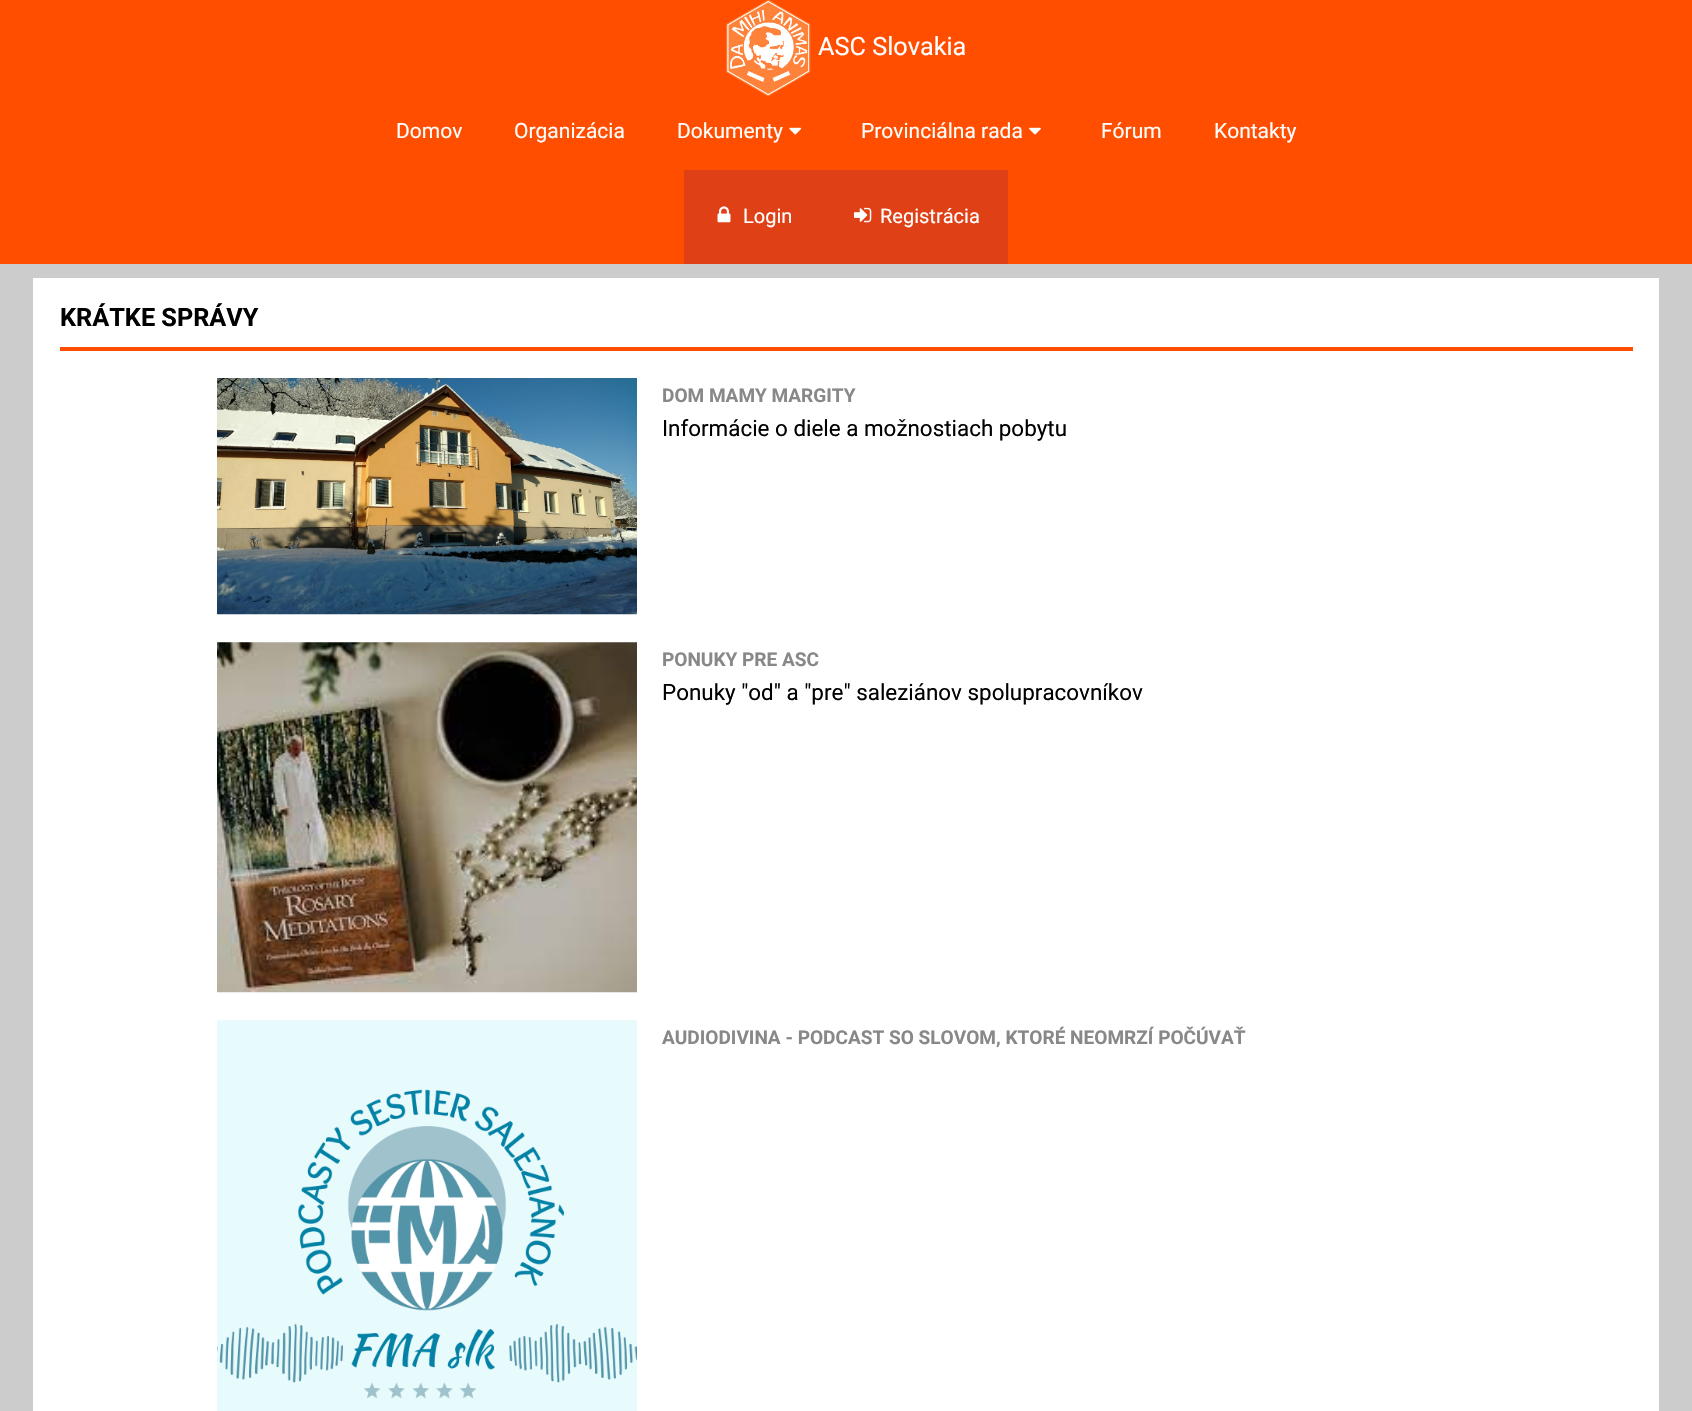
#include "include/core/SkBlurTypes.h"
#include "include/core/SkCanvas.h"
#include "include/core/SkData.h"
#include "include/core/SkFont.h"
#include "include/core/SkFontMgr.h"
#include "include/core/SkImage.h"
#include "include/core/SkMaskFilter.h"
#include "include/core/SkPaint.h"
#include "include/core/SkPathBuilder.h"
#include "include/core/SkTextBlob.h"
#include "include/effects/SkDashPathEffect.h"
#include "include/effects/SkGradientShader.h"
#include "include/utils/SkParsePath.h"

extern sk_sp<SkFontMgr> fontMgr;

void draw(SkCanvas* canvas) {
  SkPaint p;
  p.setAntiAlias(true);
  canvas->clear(SkColorSetRGB(204, 204, 204));
  p.setColor(SkColorSetRGB(255, 78, 0));
  canvas->drawRect(SkRect::MakeLTRB(0, 0, 1692, 264), p);
  canvas->drawImageRect(SkImages::DeferredFromEncodedData(SkData::MakeFromFileName("images/1.png")), SkRect::MakeLTRB(726, 0, 811, 97), SkSamplingOptions());
  canvas->drawImageRect(SkImages::DeferredFromEncodedData(SkData::MakeFromFileName("images/2.png")), SkRect::MakeLTRB(789, 127, 802, 135), SkSamplingOptions());
  canvas->drawImageRect(SkImages::DeferredFromEncodedData(SkData::MakeFromFileName("images/3.png")), SkRect::MakeLTRB(1029, 127, 1041, 135), SkSamplingOptions());
  p.setColor(SkColorSetRGB(223, 64, 22));
  canvas->drawRect(SkRect::MakeLTRB(684, 170, 1008, 264), p);
  canvas->drawImageRect(SkImages::DeferredFromEncodedData(SkData::MakeFromFileName("images/4.png")), SkRect::MakeLTRB(717, 206, 731, 223), SkSamplingOptions());
  canvas->drawImageRect(SkImages::DeferredFromEncodedData(SkData::MakeFromFileName("images/5.png")), SkRect::MakeLTRB(854, 207, 872, 223), SkSamplingOptions());
  p.setColor(SK_ColorWHITE);
  canvas->drawRect(SkRect::MakeLTRB(33, 278, 1659, 1411), p);
  p.setColor(SkColorSetRGB(255, 78, 0));
  canvas->drawRect(SkRect::MakeLTRB(60, 347, 1633, 351), p);
  canvas->drawImageRect(SkImages::DeferredFromEncodedData(SkData::MakeFromFileName("images/6.png")), SkRect::MakeLTRB(217, 378, 637, 615), SkSamplingOptions());
  canvas->drawImageRect(SkImages::DeferredFromEncodedData(SkData::MakeFromFileName("images/7.png")), SkRect::MakeLTRB(217, 642, 637, 993), SkSamplingOptions());
  canvas->drawImageRect(SkImages::DeferredFromEncodedData(SkData::MakeFromFileName("images/8.png")), SkRect::MakeLTRB(217, 1020, 637, 1411), SkSamplingOptions());
  SkFont font1(fontMgr->matchFamilyStyle("Roboto", SkFontStyle::Normal()), 25.25f);
  font1.setSubpixel(true);
  p.setColor(SK_ColorWHITE);
  canvas->drawString("ASC Slovakia", 818, 55, font1, p);
  SkFont font2(fontMgr->matchFamilyStyle("Roboto", SkFontStyle::Normal()), 21);
  font2.setSubpixel(true);
  canvas->drawString("Domov", 396, 138, font2, p);
  canvas->drawString("Organizácia", 514, 138, font2, p);
  canvas->drawString("Dokumenty", 677, 138, font2, p);
  canvas->drawString("Provinciálna rada", 861, 138, font2, p);
  canvas->drawString("Fórum", 1101, 138, font2, p);
  canvas->drawString("Kontakty", 1214, 138, font2, p);
  SkFont font3(fontMgr->matchFamilyStyle("Roboto", SkFontStyle::Normal()), 20);
  font3.setSubpixel(true);
  canvas->drawString("Login", 743, 223, font3, p);
  canvas->drawString("Registrácia", 880, 223, font3, p);
  SkFont font4(fontMgr->matchFamilyStyle("Roboto", SkFontStyle::Bold()), 25.25f);
  font4.setSubpixel(true);
  p.setColor(SK_ColorBLACK);
  canvas->drawString("KRÁTKE SPRÁVY", 60, 326, font4, p);
  SkFont font5(fontMgr->matchFamilyStyle("Roboto", SkFontStyle::Bold()), 19.05f);
  font5.setSubpixel(true);
  p.setColor(SkColorSetRGB(136, 136, 136));
  canvas->drawString("DOM MAMY MARGITY", 662, 402, font5, p);
  SkFont font6(fontMgr->matchFamilyStyle("Roboto", SkFontStyle::Normal()), 22.4f);
  font6.setSubpixel(true);
  p.setColor(SK_ColorBLACK);
  canvas->drawString("Informácie o diele a možnostiach pobytu", 662, 436, font6, p);
  p.setColor(SkColorSetRGB(136, 136, 136));
  canvas->drawString("PONUKY PRE ASC", 662, 666, font5, p);
  p.setColor(SK_ColorBLACK);
  canvas->drawString("Ponuky \"od\" a \"pre\" saleziánov spolupracovníkov", 662, 700, font6, p);
  p.setColor(SkColorSetRGB(136, 136, 136));
  canvas->drawString("AUDIODIVINA - PODCAST SO SLOVOM, KTORÉ NEOMRZÍ POČÚVAŤ", 662, 1044, font5, p);
}
